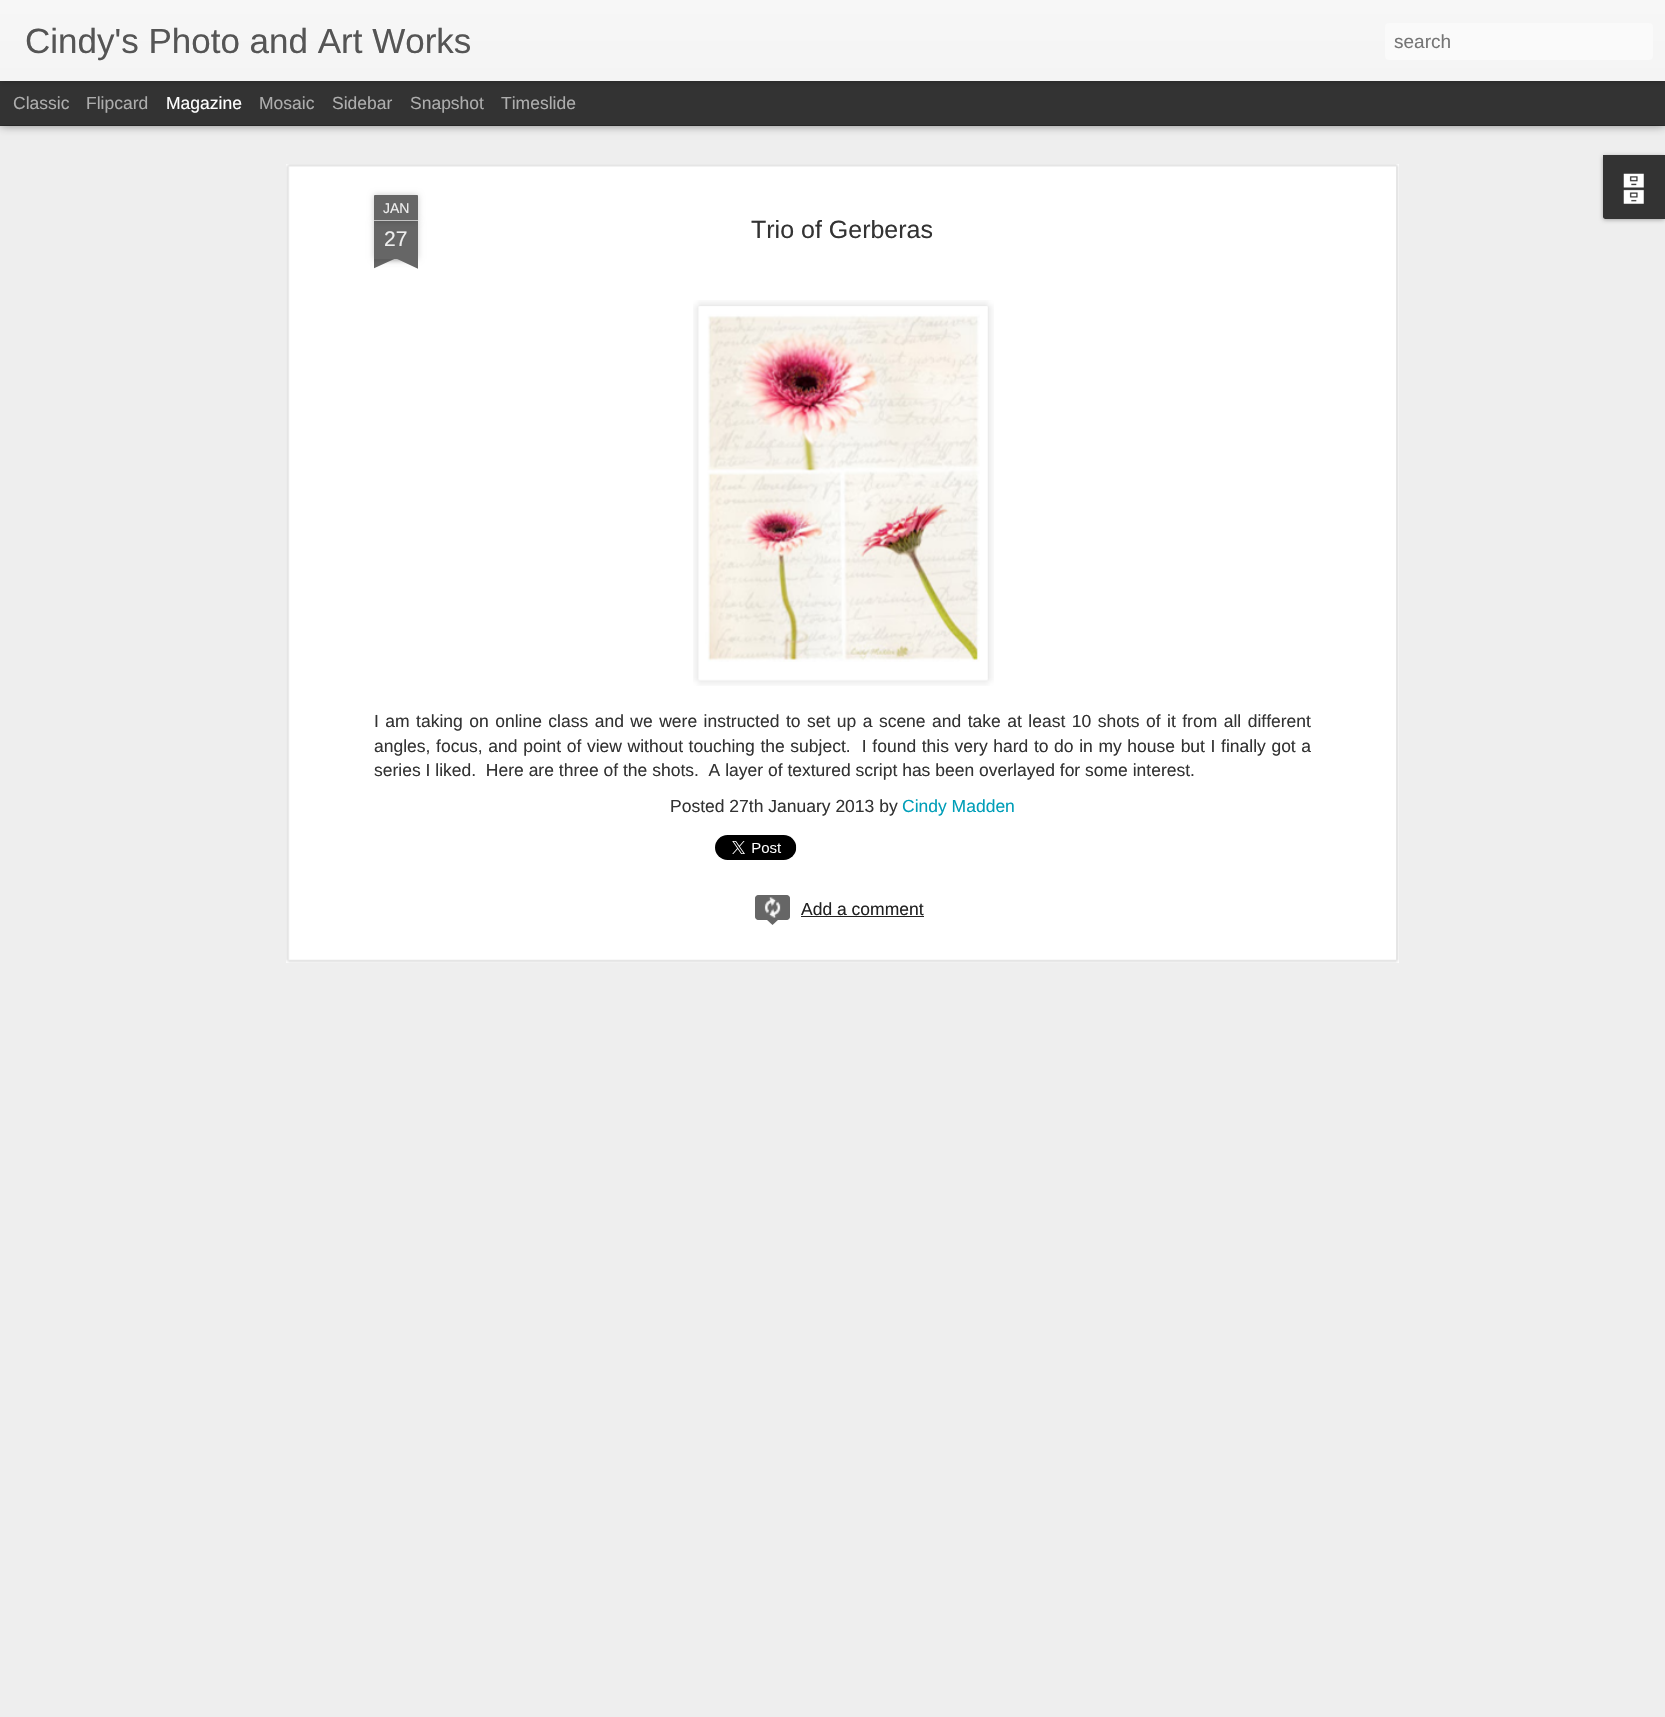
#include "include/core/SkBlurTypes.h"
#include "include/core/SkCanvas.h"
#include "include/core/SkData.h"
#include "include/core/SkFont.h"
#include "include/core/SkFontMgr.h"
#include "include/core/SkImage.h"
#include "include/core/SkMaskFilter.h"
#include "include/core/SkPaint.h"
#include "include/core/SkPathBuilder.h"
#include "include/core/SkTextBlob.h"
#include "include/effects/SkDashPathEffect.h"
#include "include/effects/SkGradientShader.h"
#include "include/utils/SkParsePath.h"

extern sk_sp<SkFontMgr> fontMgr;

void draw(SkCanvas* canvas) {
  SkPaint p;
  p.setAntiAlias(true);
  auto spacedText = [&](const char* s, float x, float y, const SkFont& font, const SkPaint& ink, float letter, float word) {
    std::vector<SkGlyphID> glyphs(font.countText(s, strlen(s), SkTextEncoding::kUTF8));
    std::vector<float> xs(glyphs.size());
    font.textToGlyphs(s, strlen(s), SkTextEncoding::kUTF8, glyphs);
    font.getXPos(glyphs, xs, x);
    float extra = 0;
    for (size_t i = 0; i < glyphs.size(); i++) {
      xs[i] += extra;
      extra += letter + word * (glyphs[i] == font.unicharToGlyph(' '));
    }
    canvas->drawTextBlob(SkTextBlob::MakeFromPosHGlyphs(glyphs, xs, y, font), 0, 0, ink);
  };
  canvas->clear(SkColorSetRGB(51, 51, 51));
  p.setColor(SkColorSetRGB(238, 238, 238));
  canvas->drawRect(SkRect::MakeLTRB(0, 126, 1665, 1717), p);
  p.setColor(SkColorSetARGB(128, 0, 0, 0));
  p.setMaskFilter(SkMaskFilter::MakeBlur(kNormal_SkBlurStyle, 5));
  canvas->drawRect(SkRect::MakeLTRB(0, 81, 1665, 125), p);
  p.setMaskFilter(nullptr);
  p.setColor(SkColorSetRGB(51, 51, 51));
  canvas->drawRect(SkRect::MakeLTRB(0, 81, 1665, 125), p);
  p.setColor(SkColorSetARGB(77, 0, 0, 0));
  p.setMaskFilter(SkMaskFilter::MakeBlur(kNormal_SkBlurStyle, 3));
  canvas->drawRect(SkRect::MakeLTRB(0, 0, 1665, 81), p);
  p.setMaskFilter(nullptr);
  {
    const SkColor colors[] = {SkColorSetRGB(247, 247, 247), SkColorSetRGB(244, 244, 244)};
    const float stops[] = {0, 1};
    const SkPoint ends[] = {{0, 0}, {0, 81}};
    p.setShader(SkGradientShader::MakeLinear(ends, colors, stops, 2, SkTileMode::kClamp));
    p.setAlpha(255);
  }
  canvas->drawRect(SkRect::MakeLTRB(0, 0, 1665, 81), p);
  p.setShader(nullptr);
  p.setColor(SkColorSetRGB(250, 250, 250));
  canvas->drawRoundRect(SkRect::MakeLTRB(1385, 23, 1653, 60), 4, 4, p);
  p.setColor(SkColorSetARGB(77, 0, 0, 0));
  p.setMaskFilter(SkMaskFilter::MakeBlur(kNormal_SkBlurStyle, 2));
  canvas->drawRoundRect(SkRect::MakeLTRB(1603, 156, 1665, 220), 2.5f, 2.5f, p);
  p.setMaskFilter(nullptr);
  p.setColor(SkColorSetRGB(51, 51, 51));
  canvas->drawPath(SkPathBuilder().moveTo(1603, 155).lineTo(1665, 155).lineTo(1665, 219).lineTo(1605.5f, 219).cubicTo(1604, 219, 1603, 218, 1603, 216.5f).close().detach(), p);
  canvas->drawImageRect(SkImages::DeferredFromEncodedData(SkData::MakeFromFileName("images/1.png")), SkRect::MakeLTRB(1623, 173, 1644, 204), SkSamplingOptions());
  p.setColor(SK_ColorWHITE);
  canvas->drawRect(SkRect::MakeLTRB(286, 164, 1399, 963), p);
  canvas->drawImageRect(SkImages::DeferredFromEncodedData(SkData::MakeFromFileName("images/2.png")), SkRect::MakeLTRB(286, 164, 1399, 963), SkSamplingOptions());
  p.setColor(SkColorSetARGB(51, 0, 0, 0));
  p.setMaskFilter(SkMaskFilter::MakeBlur(kNormal_SkBlurStyle, 3));
  canvas->drawRect(SkRect::MakeLTRB(374, 221, 418, 259), p);
  p.setMaskFilter(nullptr);
  p.setColor(SkColorSetRGB(102, 102, 102));
  canvas->drawRect(SkRect::MakeLTRB(374, 221, 418, 259), p);
  p.setColor(SkColorSetARGB(51, 0, 0, 0));
  p.setMaskFilter(SkMaskFilter::MakeBlur(kNormal_SkBlurStyle, 3));
  canvas->drawRoundRect(SkRect::MakeLTRB(374, 195, 418, 221), 1, 1, p);
  p.setMaskFilter(nullptr);
  p.setColor(SkColorSetRGB(102, 102, 102));
  canvas->drawPath(SkPathBuilder().moveTo(375, 195).lineTo(417, 195).cubicTo(417.5f, 195, 418, 195.5f, 418, 196).lineTo(418, 221).lineTo(374, 221).lineTo(374, 196).cubicTo(374, 195.5f, 374.5f, 195, 375, 195).close().detach(), p);
  p.setColor(SkColorSetRGB(194, 194, 194));
  canvas->drawRect(SkRect::MakeLTRB(374, 220, 418, 221), p);
  canvas->save();
  canvas->clipRect(SkRect::MakeLTRB(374, 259, 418, 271));
  p.setColor(SkColorSetARGB(51, 0, 0, 0));
  p.setMaskFilter(SkMaskFilter::MakeBlur(kNormal_SkBlurStyle, 3));
  canvas->drawRect(SkRect::MakeLTRB(363, 246, 425, 259), p);
  p.setMaskFilter(nullptr);
  canvas->restore();
  canvas->save();
  canvas->clipRect(SkRect::MakeLTRB(374, 259, 418, 271));
  p.setColor(SkColorSetRGB(102, 102, 102));
  canvas->drawPath(SkPathBuilder().moveTo(363, 260).lineTo(419, 234).lineTo(425, 245).lineTo(368, 271).close().detach(), p);
  canvas->restore();
  canvas->save();
  canvas->clipRect(SkRect::MakeLTRB(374, 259, 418, 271));
  p.setColor(SkColorSetARGB(51, 0, 0, 0));
  p.setMaskFilter(SkMaskFilter::MakeBlur(kNormal_SkBlurStyle, 3));
  canvas->drawRect(SkRect::MakeLTRB(366, 246, 429, 259), p);
  p.setMaskFilter(nullptr);
  canvas->restore();
  canvas->save();
  canvas->clipRect(SkRect::MakeLTRB(374, 259, 418, 271));
  p.setColor(SkColorSetRGB(102, 102, 102));
  canvas->drawPath(SkPathBuilder().moveTo(372, 234).lineTo(428, 260).lineTo(423, 271).lineTo(367, 245).close().detach(), p);
  canvas->restore();
  canvas->drawImageRect(SkImages::DeferredFromEncodedData(SkData::MakeFromFileName("images/3.png")), SkRect::MakeLTRB(693, 300, 994, 686), SkSamplingOptions());
  canvas->drawImageRect(SkImages::DeferredFromEncodedData(SkData::MakeFromFileName("images/4.png")), SkRect::MakeLTRB(698, 306, 988, 681), SkSamplingOptions());
  canvas->drawImageRect(SkImages::DeferredFromEncodedData(SkData::MakeFromFileName("images/5.png")), SkRect::MakeLTRB(715, 835, 797, 860), SkSamplingOptions());
  canvas->drawRoundRect(SkRect::MakeLTRB(755, 895, 790, 920), 4, 4, p);
  canvas->drawImageRect(SkImages::DeferredFromEncodedData(SkData::MakeFromFileName("images/6.png")), SkRect::MakeLTRB(764, 897, 781, 918), SkSamplingOptions());
  p.setStyle(SkPaint::kStroke_Style);
  p.setStrokeWidth(1);
  canvas->drawRoundRect(SkRect::MakeLTRB(755.5f, 895.5f, 789.5f, 919.5f), 3.5f, 3.5f, p);
  p.setStyle(SkPaint::kFill_Style);
  canvas->drawPath(SkPathBuilder().moveTo(766, 919).lineTo(779, 919).lineTo(772.5f, 925).close().detach(), p);
  p.setColor(SkColorSetRGB(34, 34, 34));
  canvas->drawRect(SkRect::MakeLTRB(801, 916, 924, 917), p);
  SkFont font1(fontMgr->matchFamilyStyle("Liberation Sans", SkFontStyle::Normal()), 35);
  font1.setSubpixel(true);
  p.setColor(SkColorSetRGB(85, 85, 85));
  canvas->drawString("Cindy's Photo and Art Works", 25, 53, font1, p);
  SkFont font2(fontMgr->matchFamilyStyle("Liberation Sans", SkFontStyle::Normal()), 19);
  font2.setSubpixel(true);
  p.setColor(SkColorSetRGB(117, 117, 117));
  canvas->drawString("search", 1394, 48, font2, p);
  SkFont font3(fontMgr->matchFamilyStyle("Liberation Sans", SkFontStyle::Normal()), 17.5f);
  font3.setSubpixel(true);
  p.setColor(SkColorSetRGB(173, 173, 173));
  canvas->drawString("Classic", 13, 109, font3, p);
  canvas->drawString("Flipcard", 86, 109, font3, p);
  p.setColor(SK_ColorWHITE);
  canvas->drawString("Magazine", 166, 109, font3, p);
  p.setColor(SkColorSetRGB(173, 173, 173));
  canvas->drawString("Mosaic", 259, 109, font3, p);
  canvas->drawString("Sidebar", 332, 109, font3, p);
  canvas->drawString("Snapshot", 410, 109, font3, p);
  canvas->drawString("Timeslide", 501, 109, font3, p);
  SkFont font4(fontMgr->matchFamilyStyle("Liberation Sans", SkFontStyle::Normal()), 14);
  font4.setSubpixel(true);
  p.setColor(SkColorSetRGB(238, 238, 238));
  canvas->drawString("JAN", 383, 213, font4, p);
  SkFont font5(fontMgr->matchFamilyStyle("Liberation Sans", SkFontStyle::Normal()), 21);
  font5.setSubpixel(true);
  canvas->drawString("27", 384, 246, font5, p);
  SkFont font6(fontMgr->matchFamilyStyle("Liberation Sans", SkFontStyle::Normal()), 25);
  font6.setSubpixel(true);
  p.setColor(SkColorSetRGB(51, 51, 51));
  canvas->drawString("Trio of Gerberas", 751, 238, font6, p);
  spacedText("I am taking on online class and we were instructed to set up a scene and take at least 10 shots of it from all different", 374, 727, font3, p, 0, 1.6f);
  spacedText("angles, focus, and point of view without touching the subject.  I found this very hard to do in my house but I finally got a", 374, 752, font3, p, 0, 0.75f);
  canvas->drawString("series I liked.  Here are three of the shots.  A layer of textured script has been overlayed for some interest.", 374, 776, font3, p);
  canvas->drawString("Posted 27th January 2013 by", 670, 812, font3, p);
  p.setColor(SkColorSetRGB(0, 158, 184));
  canvas->drawString("Cindy Madden", 902, 812, font3, p);
  p.setColor(SkColorSetRGB(34, 34, 34));
  canvas->drawString("Add a comment", 801, 915, font3, p);
}
